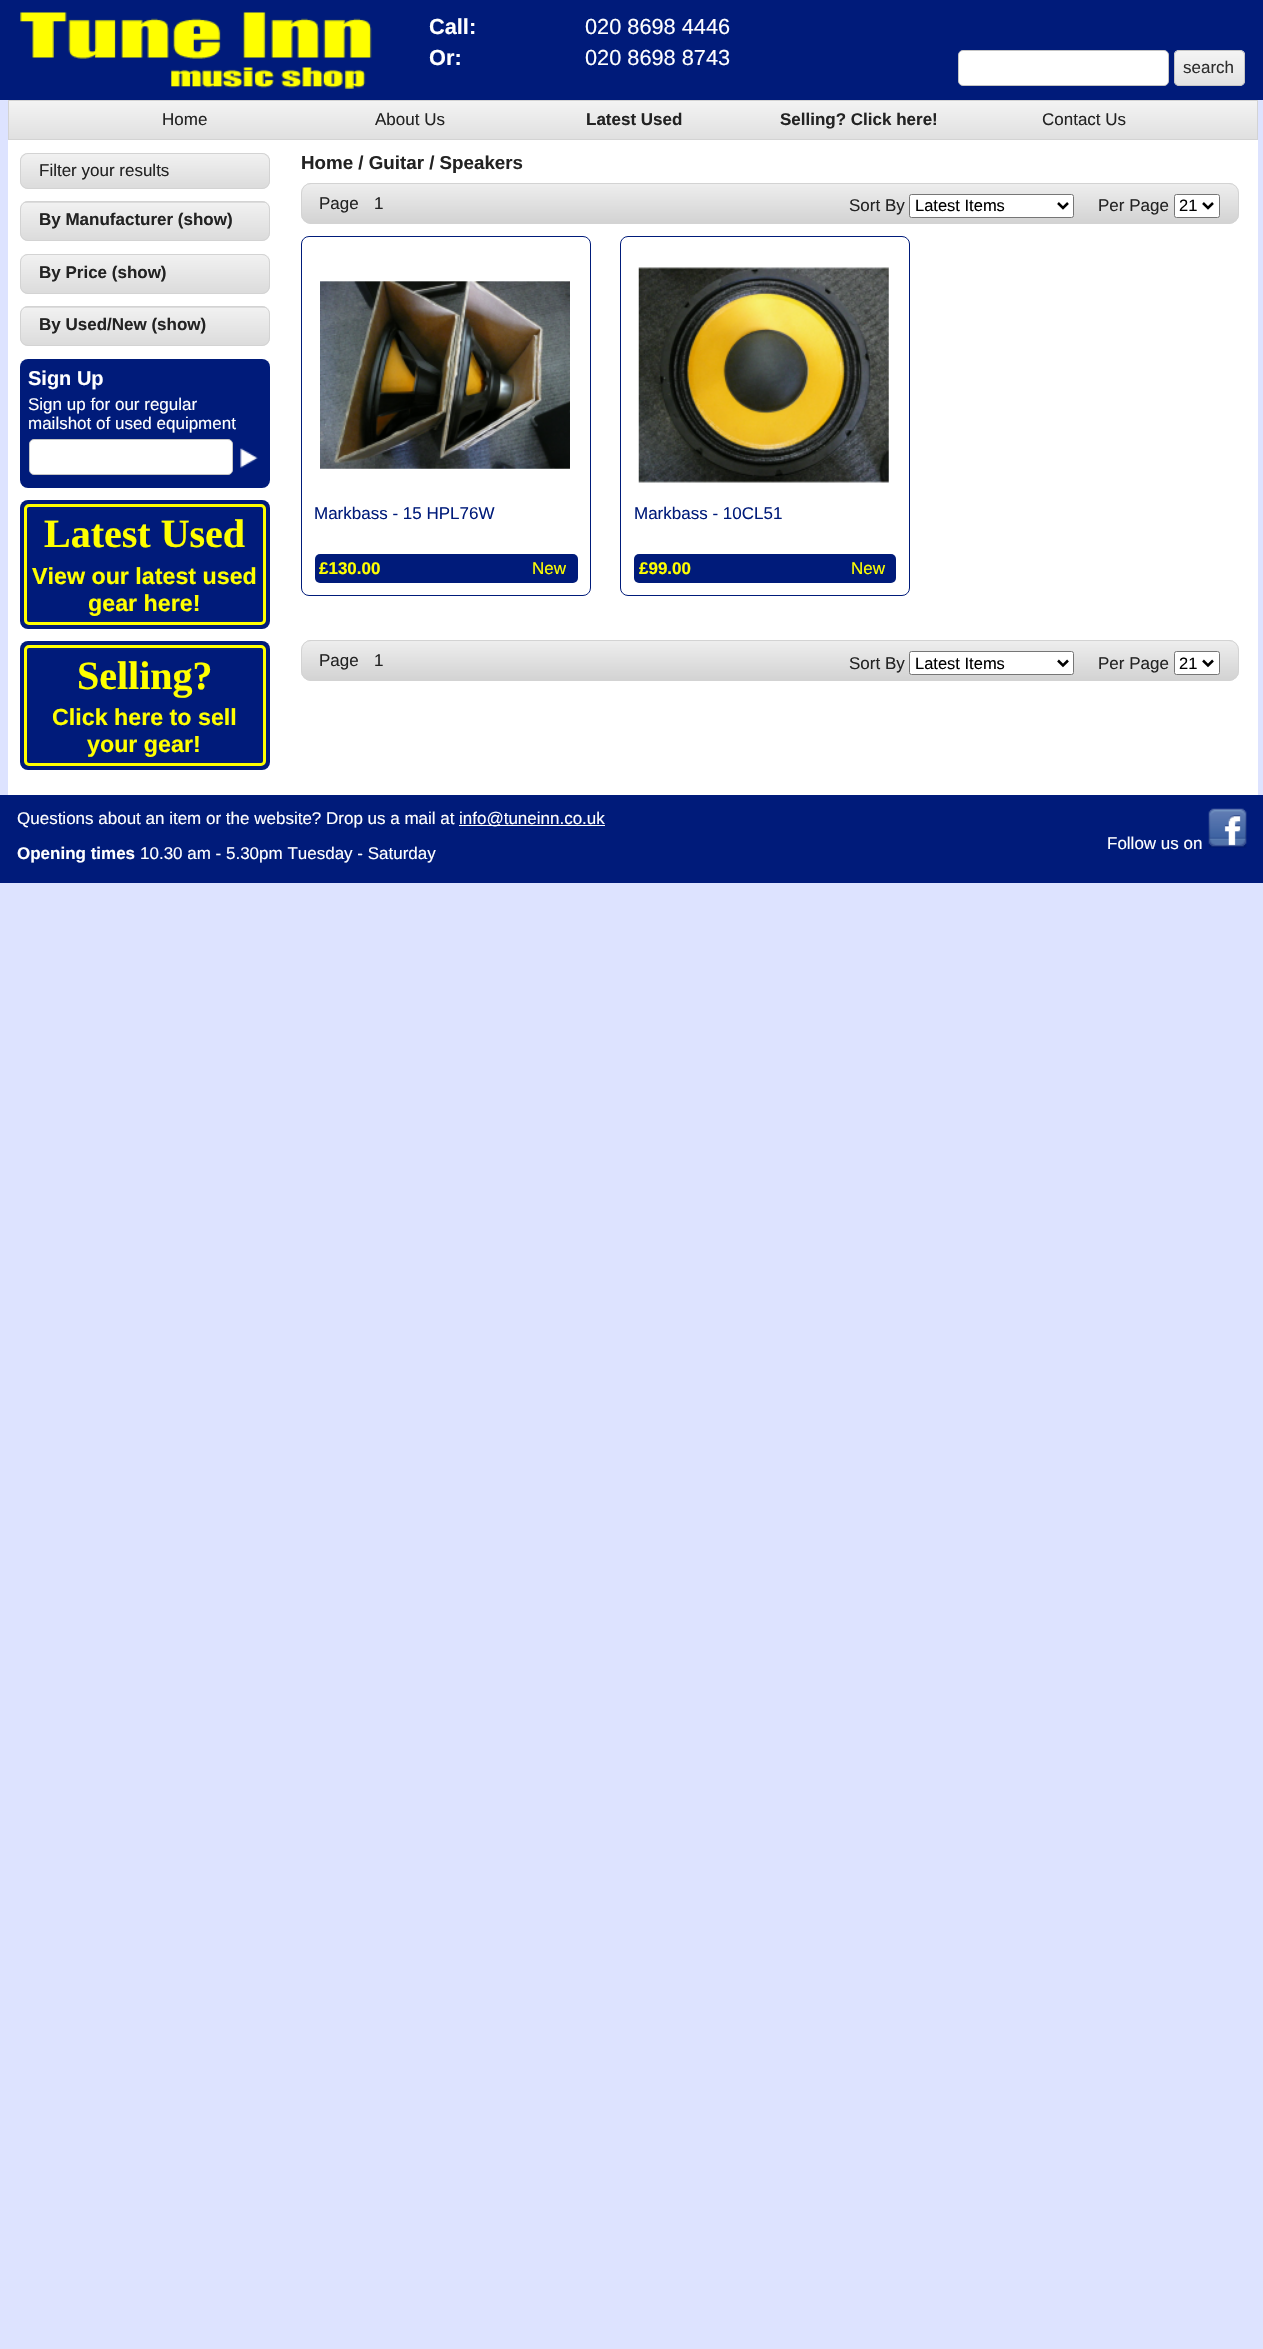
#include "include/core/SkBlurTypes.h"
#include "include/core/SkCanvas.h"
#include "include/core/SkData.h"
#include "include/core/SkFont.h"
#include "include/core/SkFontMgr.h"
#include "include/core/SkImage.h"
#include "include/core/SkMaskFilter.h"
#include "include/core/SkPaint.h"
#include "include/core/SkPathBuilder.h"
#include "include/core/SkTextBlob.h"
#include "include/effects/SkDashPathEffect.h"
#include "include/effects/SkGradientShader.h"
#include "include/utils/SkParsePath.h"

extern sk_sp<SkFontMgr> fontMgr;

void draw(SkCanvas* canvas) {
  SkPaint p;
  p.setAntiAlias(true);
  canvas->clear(SkColorSetRGB(221, 227, 255));
  p.setColor(SkColorSetRGB(0, 27, 122));
  canvas->drawRect(SkRect::MakeLTRB(0, 0, 1263, 100), p);
  canvas->drawImageRect(SkImages::DeferredFromEncodedData(SkData::MakeFromFileName("images/1.png")), SkRect::MakeLTRB(20, 12, 372, 89), SkSamplingOptions());
  p.setColor(SK_ColorWHITE);
  canvas->drawRoundRect(SkRect::MakeLTRB(958.5f, 50.5f, 1168.5f, 85.5f), 4.5f, 4.5f, p);
  p.setStyle(SkPaint::kStroke_Style);
  p.setStrokeWidth(1);
  p.setColor(SkColorSetRGB(197, 197, 197));
  canvas->drawRoundRect(SkRect::MakeLTRB(958.5f, 50.5f, 1168.5f, 85.5f), 4.5f, 4.5f, p);
  p.setStyle(SkPaint::kFill_Style);
  p.setColor(SkColorSetRGB(227, 227, 227));
  canvas->drawRoundRect(SkRect::MakeLTRB(1174, 50, 1245, 86), 5, 5, p);
  canvas->save();
  canvas->clipPath(SkPathBuilder().moveTo(1179, 50).lineTo(1240, 50).cubicTo(1243, 50, 1245, 52, 1245, 55).lineTo(1245, 81).cubicTo(1245, 84, 1243, 86, 1240, 86).lineTo(1179, 86).cubicTo(1176, 86, 1174, 84, 1174, 81).lineTo(1174, 55).cubicTo(1174, 52, 1176, 50, 1179, 50).close().detach(), true);
  {
    const SkColor colors[] = {SkColorSetARGB(153, 255, 255, 255), SkColorSetARGB(0, 255, 255, 255)};
    const float stops[] = {0, 1};
    const SkPoint ends[] = {{1209, 51}, {1209, 85}};
    p.setShader(SkGradientShader::MakeLinear(ends, colors, stops, 2, SkTileMode::kClamp));
    p.setAlpha(255);
  }
  canvas->drawRect(SkRect::MakeLTRB(1174, 51, 1245, 84), p);
  canvas->restore();
  p.setStyle(SkPaint::kStroke_Style);
  p.setShader(nullptr);
  p.setColor(SkColorSetRGB(197, 197, 197));
  canvas->drawRoundRect(SkRect::MakeLTRB(1174.5f, 50.5f, 1244.5f, 85.5f), 4.5f, 4.5f, p);
  p.setStyle(SkPaint::kFill_Style);
  p.setColor(SK_ColorWHITE);
  canvas->drawRect(SkRect::MakeLTRB(8, 140, 1258, 795), p);
  {
    const SkColor colors[] = {SkColorSetRGB(243, 243, 243), SkColorSetRGB(224, 224, 224)};
    const float stops[] = {0, 1};
    const SkPoint ends[] = {{633, 101}, {633, 139}};
    p.setShader(SkGradientShader::MakeLinear(ends, colors, stops, 2, SkTileMode::kClamp));
    p.setAlpha(255);
  }
  canvas->drawRect(SkRect::MakeLTRB(9, 101, 1257, 139), p);
  p.setStyle(SkPaint::kStroke_Style);
  p.setShader(nullptr);
  p.setColor(SkColorSetRGB(211, 211, 211));
  canvas->drawRect(SkRect::MakeLTRB(8.5f, 100.5f, 1257.5f, 139.5f), p);
  p.setStyle(SkPaint::kFill_Style);
  p.setColor(SkColorSetRGB(220, 220, 220));
  canvas->drawRoundRect(SkRect::MakeLTRB(20, 153, 270, 189), 8, 8, p);
  {
    const SkColor colors[] = {SkColorSetARGB(153, 255, 255, 255), SkColorSetARGB(0, 255, 255, 255)};
    const float stops[] = {0, 1};
    const SkPoint ends[] = {{145, 152}, {145, 189}};
    p.setShader(SkGradientShader::MakeLinear(ends, colors, stops, 2, SkTileMode::kClamp));
    p.setAlpha(255);
  }
  canvas->drawRoundRect(SkRect::MakeLTRB(20.5f, 153.5f, 269.5f, 188.5f), 7.5f, 7.5f, p);
  p.setStyle(SkPaint::kStroke_Style);
  p.setShader(nullptr);
  p.setColor(SkColorSetRGB(211, 211, 211));
  canvas->drawRoundRect(SkRect::MakeLTRB(20.5f, 153.5f, 269.5f, 188.5f), 7.5f, 7.5f, p);
  p.setStyle(SkPaint::kFill_Style);
  p.setColor(SkColorSetRGB(220, 220, 220));
  canvas->drawRoundRect(SkRect::MakeLTRB(21, 154, 269, 188), 8, 8, p);
  {
    const SkColor colors[] = {SkColorSetARGB(153, 255, 255, 255), SkColorSetARGB(0, 255, 255, 255)};
    const float stops[] = {0, 1};
    const SkPoint ends[] = {{145, 154}, {145, 188}};
    p.setShader(SkGradientShader::MakeLinear(ends, colors, stops, 2, SkTileMode::kClamp));
    p.setAlpha(255);
  }
  canvas->drawRoundRect(SkRect::MakeLTRB(21, 154, 269, 188), 8, 8, p);
  p.setShader(nullptr);
  p.setColor(SkColorSetRGB(220, 220, 220));
  canvas->drawRoundRect(SkRect::MakeLTRB(20, 201, 270, 241), 8, 8, p);
  canvas->save();
  canvas->clipPath(SkPathBuilder().moveTo(28, 201).lineTo(262, 201).cubicTo(266.5f, 201, 270, 204.5f, 270, 209).lineTo(270, 233).cubicTo(270, 237.5f, 266.5f, 241, 262, 241).lineTo(28, 241).cubicTo(23.5f, 241, 20, 237.5f, 20, 233).lineTo(20, 209).cubicTo(20, 204.5f, 23.5f, 201, 28, 201).close().detach(), true);
  {
    const SkColor colors[] = {SkColorSetARGB(153, 255, 255, 255), SkColorSetARGB(0, 255, 255, 255)};
    const float stops[] = {0, 1};
    const SkPoint ends[] = {{145, 203}, {145, 240}};
    p.setShader(SkGradientShader::MakeLinear(ends, colors, stops, 2, SkTileMode::kClamp));
    p.setAlpha(255);
  }
  canvas->drawRect(SkRect::MakeLTRB(20, 203, 270, 239), p);
  canvas->restore();
  p.setStyle(SkPaint::kStroke_Style);
  p.setShader(nullptr);
  p.setColor(SkColorSetRGB(211, 211, 211));
  canvas->drawRoundRect(SkRect::MakeLTRB(20.5f, 201.5f, 269.5f, 240.5f), 7.5f, 7.5f, p);
  p.setStyle(SkPaint::kFill_Style);
  p.setColor(SkColorSetRGB(220, 220, 220));
  canvas->drawRoundRect(SkRect::MakeLTRB(20, 254, 270, 294), 8, 8, p);
  canvas->save();
  canvas->clipPath(SkPathBuilder().moveTo(28, 254).lineTo(262, 254).cubicTo(266.5f, 254, 270, 257.5f, 270, 262).lineTo(270, 286).cubicTo(270, 290.5f, 266.5f, 294, 262, 294).lineTo(28, 294).cubicTo(23.5f, 294, 20, 290.5f, 20, 286).lineTo(20, 262).cubicTo(20, 257.5f, 23.5f, 254, 28, 254).close().detach(), true);
  {
    const SkColor colors[] = {SkColorSetARGB(153, 255, 255, 255), SkColorSetARGB(0, 255, 255, 255)};
    const float stops[] = {0, 1};
    const SkPoint ends[] = {{145, 255}, {145, 293}};
    p.setShader(SkGradientShader::MakeLinear(ends, colors, stops, 2, SkTileMode::kClamp));
    p.setAlpha(255);
  }
  canvas->drawRect(SkRect::MakeLTRB(20, 255, 270, 292), p);
  canvas->restore();
  p.setStyle(SkPaint::kStroke_Style);
  p.setShader(nullptr);
  p.setColor(SkColorSetRGB(211, 211, 211));
  canvas->drawRoundRect(SkRect::MakeLTRB(20.5f, 254.5f, 269.5f, 293.5f), 7.5f, 7.5f, p);
  p.setStyle(SkPaint::kFill_Style);
  p.setColor(SkColorSetRGB(220, 220, 220));
  canvas->drawRoundRect(SkRect::MakeLTRB(20, 306, 270, 346), 8, 8, p);
  canvas->save();
  canvas->clipPath(SkPathBuilder().moveTo(28, 306).lineTo(262, 306).cubicTo(266.5f, 306, 270, 309.5f, 270, 314).lineTo(270, 338).cubicTo(270, 342.5f, 266.5f, 346, 262, 346).lineTo(28, 346).cubicTo(23.5f, 346, 20, 342.5f, 20, 338).lineTo(20, 314).cubicTo(20, 309.5f, 23.5f, 306, 28, 306).close().detach(), true);
  {
    const SkColor colors[] = {SkColorSetARGB(153, 255, 255, 255), SkColorSetARGB(0, 255, 255, 255)};
    const float stops[] = {0, 1};
    const SkPoint ends[] = {{145, 308}, {145, 345}};
    p.setShader(SkGradientShader::MakeLinear(ends, colors, stops, 2, SkTileMode::kClamp));
    p.setAlpha(255);
  }
  canvas->drawRect(SkRect::MakeLTRB(20, 308, 270, 344), p);
  canvas->restore();
  p.setStyle(SkPaint::kStroke_Style);
  p.setShader(nullptr);
  p.setColor(SkColorSetRGB(211, 211, 211));
  canvas->drawRoundRect(SkRect::MakeLTRB(20.5f, 306.5f, 269.5f, 345.5f), 7.5f, 7.5f, p);
  p.setStyle(SkPaint::kFill_Style);
  p.setColor(SkColorSetRGB(0, 27, 122));
  canvas->drawRoundRect(SkRect::MakeLTRB(20, 359, 270, 488), 8, 8, p);
  p.setColor(SK_ColorWHITE);
  canvas->drawRoundRect(SkRect::MakeLTRB(29.5f, 439.5f, 232.5f, 474.5f), 4.5f, 4.5f, p);
  p.setStyle(SkPaint::kStroke_Style);
  p.setColor(SkColorSetRGB(197, 197, 197));
  canvas->drawRoundRect(SkRect::MakeLTRB(29.5f, 439.5f, 232.5f, 474.5f), 4.5f, 4.5f, p);
  canvas->drawImageRect(SkImages::DeferredFromEncodedData(SkData::MakeFromFileName("images/2.png")), SkRect::MakeLTRB(240, 448, 258, 468), SkSamplingOptions());
  p.setStyle(SkPaint::kFill_Style);
  p.setColor(SkColorSetRGB(0, 27, 122));
  canvas->drawRoundRect(SkRect::MakeLTRB(20, 500, 270, 629), 8, 8, p);
  p.setStyle(SkPaint::kStroke_Style);
  p.setStrokeWidth(3);
  p.setColor(SkColorSetRGB(255, 255, 0));
  canvas->drawRoundRect(SkRect::MakeLTRB(25.5f, 505.5f, 264.5f, 623.5f), 3.5f, 3.5f, p);
  p.setStyle(SkPaint::kFill_Style);
  p.setColor(SkColorSetRGB(0, 27, 122));
  canvas->drawRoundRect(SkRect::MakeLTRB(20, 641, 270, 770), 8, 8, p);
  p.setStyle(SkPaint::kStroke_Style);
  p.setColor(SkColorSetRGB(255, 255, 0));
  canvas->drawRoundRect(SkRect::MakeLTRB(25.5f, 646.5f, 264.5f, 764.5f), 3.5f, 3.5f, p);
  p.setStyle(SkPaint::kFill_Style);
  p.setColor(SkColorSetRGB(211, 211, 211));
  canvas->drawRoundRect(SkRect::MakeLTRB(301, 183, 1239, 224), 10, 10, p);
  canvas->save();
  canvas->clipPath(SkPathBuilder().moveTo(311, 183).lineTo(1229, 183).cubicTo(1234.5f, 183, 1239, 187.5f, 1239, 193).lineTo(1239, 214).cubicTo(1239, 219.5f, 1234.5f, 224, 1229, 224).lineTo(311, 224).cubicTo(305.5f, 224, 301, 219.5f, 301, 214).lineTo(301, 193).cubicTo(301, 187.5f, 305.5f, 183, 311, 183).close().detach(), true);
  {
    const SkColor colors[] = {SkColorSetARGB(153, 255, 255, 255), SkColorSetARGB(0, 255, 255, 255)};
    const float stops[] = {0, 1};
    const SkPoint ends[] = {{770, 184}, {770, 223}};
    p.setShader(SkGradientShader::MakeLinear(ends, colors, stops, 2, SkTileMode::kClamp));
    p.setAlpha(255);
  }
  canvas->drawRect(SkRect::MakeLTRB(301, 184, 1239, 222), p);
  canvas->restore();
  p.setStyle(SkPaint::kStroke_Style);
  p.setStrokeWidth(1);
  p.setShader(nullptr);
  p.setColor(SkColorSetRGB(211, 211, 211));
  canvas->drawRoundRect(SkRect::MakeLTRB(301.5f, 183.5f, 1238.5f, 223.5f), 9.5f, 9.5f, p);
  p.setStyle(SkPaint::kFill_Style);
  p.setColor(SK_ColorWHITE);
  canvas->drawRoundRect(SkRect::MakeLTRB(909.5f, 194.5f, 1073.5f, 217.5f), 2, 2, p);
  p.setStyle(SkPaint::kStroke_Style);
  p.setColor(SkColorSetRGB(118, 118, 118));
  canvas->drawRoundRect(SkRect::MakeLTRB(909.5f, 194.5f, 1073.5f, 217.5f), 2, 2, p);
  p.setStrokeWidth(2.5f);
  p.setColor(SK_ColorBLACK);
  canvas->drawPath(SkPathBuilder().moveTo(1058, 203).lineTo(1063, 208).lineTo(1068, 203).detach(), p);
  p.setStyle(SkPaint::kFill_Style);
  p.setColor(SK_ColorWHITE);
  canvas->drawRoundRect(SkRect::MakeLTRB(1174.5f, 194.5f, 1219.5f, 217.5f), 2, 2, p);
  p.setStyle(SkPaint::kStroke_Style);
  p.setStrokeWidth(1);
  p.setColor(SkColorSetRGB(118, 118, 118));
  canvas->drawRoundRect(SkRect::MakeLTRB(1174.5f, 194.5f, 1219.5f, 217.5f), 2, 2, p);
  p.setStrokeWidth(2.5f);
  p.setColor(SK_ColorBLACK);
  canvas->drawPath(SkPathBuilder().moveTo(1203, 203).lineTo(1208, 208).lineTo(1213, 203).detach(), p);
  p.setStrokeWidth(1);
  p.setColor(SkColorSetRGB(0, 27, 122));
  canvas->drawRoundRect(SkRect::MakeLTRB(301.5f, 236.5f, 590.5f, 595.5f), 7.5f, 7.5f, p);
  canvas->drawImageRect(SkImages::DeferredFromEncodedData(SkData::MakeFromFileName("images/3.png")), SkRect::MakeLTRB(320, 281, 570, 469), SkSamplingOptions());
  p.setStyle(SkPaint::kFill_Style);
  canvas->drawRoundRect(SkRect::MakeLTRB(315, 554, 578, 583), 5, 5, p);
  p.setStyle(SkPaint::kStroke_Style);
  canvas->drawRoundRect(SkRect::MakeLTRB(620.5f, 236.5f, 909.5f, 595.5f), 7.5f, 7.5f, p);
  canvas->drawImageRect(SkImages::DeferredFromEncodedData(SkData::MakeFromFileName("images/4.png")), SkRect::MakeLTRB(638, 267, 889, 483), SkSamplingOptions());
  p.setStyle(SkPaint::kFill_Style);
  canvas->drawRoundRect(SkRect::MakeLTRB(634, 554, 896, 583), 5, 5, p);
  p.setColor(SkColorSetRGB(211, 211, 211));
  canvas->drawRoundRect(SkRect::MakeLTRB(301, 640, 1239, 681), 10, 10, p);
  canvas->save();
  canvas->clipPath(SkPathBuilder().moveTo(311, 640).lineTo(1229, 640).cubicTo(1234.5f, 640, 1239, 644.5f, 1239, 650).lineTo(1239, 671).cubicTo(1239, 676.5f, 1234.5f, 681, 1229, 681).lineTo(311, 681).cubicTo(305.5f, 681, 301, 676.5f, 301, 671).lineTo(301, 650).cubicTo(301, 644.5f, 305.5f, 640, 311, 640).close().detach(), true);
  {
    const SkColor colors[] = {SkColorSetARGB(153, 255, 255, 255), SkColorSetARGB(0, 255, 255, 255)};
    const float stops[] = {0, 1};
    const SkPoint ends[] = {{770, 641}, {770, 680}};
    p.setShader(SkGradientShader::MakeLinear(ends, colors, stops, 2, SkTileMode::kClamp));
    p.setAlpha(255);
  }
  canvas->drawRect(SkRect::MakeLTRB(301, 641, 1239, 679), p);
  canvas->restore();
  p.setStyle(SkPaint::kStroke_Style);
  p.setShader(nullptr);
  p.setColor(SkColorSetRGB(211, 211, 211));
  canvas->drawRoundRect(SkRect::MakeLTRB(301.5f, 640.5f, 1238.5f, 680.5f), 9.5f, 9.5f, p);
  p.setStyle(SkPaint::kFill_Style);
  p.setColor(SK_ColorWHITE);
  canvas->drawRoundRect(SkRect::MakeLTRB(909.5f, 651.5f, 1073.5f, 674.5f), 2, 2, p);
  p.setStyle(SkPaint::kStroke_Style);
  p.setColor(SkColorSetRGB(118, 118, 118));
  canvas->drawRoundRect(SkRect::MakeLTRB(909.5f, 651.5f, 1073.5f, 674.5f), 2, 2, p);
  p.setStrokeWidth(2.5f);
  p.setColor(SK_ColorBLACK);
  canvas->drawPath(SkPathBuilder().moveTo(1058, 660.5f).lineTo(1063, 665.5f).lineTo(1068, 660.5f).detach(), p);
  p.setStyle(SkPaint::kFill_Style);
  p.setColor(SK_ColorWHITE);
  canvas->drawRoundRect(SkRect::MakeLTRB(1174.5f, 651.5f, 1219.5f, 674.5f), 2, 2, p);
  p.setStyle(SkPaint::kStroke_Style);
  p.setStrokeWidth(1);
  p.setColor(SkColorSetRGB(118, 118, 118));
  canvas->drawRoundRect(SkRect::MakeLTRB(1174.5f, 651.5f, 1219.5f, 674.5f), 2, 2, p);
  p.setStrokeWidth(2.5f);
  p.setColor(SK_ColorBLACK);
  canvas->drawPath(SkPathBuilder().moveTo(1203, 660.5f).lineTo(1208, 665.5f).lineTo(1213, 660.5f).detach(), p);
  p.setStyle(SkPaint::kFill_Style);
  p.setColor(SkColorSetRGB(0, 27, 122));
  canvas->drawRect(SkRect::MakeLTRB(0, 795, 1263, 883), p);
  p.setColor(SK_ColorWHITE);
  canvas->drawRect(SkRect::MakeLTRB(459, 825, 605, 826), p);
  canvas->drawImageRect(SkImages::DeferredFromEncodedData(SkData::MakeFromFileName("images/5.png")), SkRect::MakeLTRB(1208, 808, 1247, 848), SkSamplingOptions());
  SkFont font1(fontMgr->matchFamilyStyle("Liberation Sans", SkFontStyle::Bold()), 21.75f);
  font1.setSubpixel(true);
  canvas->drawString("Call:", 429, 34, font1, p);
  SkFont font2(fontMgr->matchFamilyStyle("Liberation Sans", SkFontStyle::Normal()), 21.75f);
  font2.setSubpixel(true);
  canvas->drawString("020 8698 4446", 585, 34, font2, p);
  canvas->drawString("Or:", 429, 65, font1, p);
  canvas->drawString("020 8698 8743", 585, 65, font2, p);
  SkFont font3(fontMgr->matchFamilyStyle("Liberation Sans", SkFontStyle::Normal()), 17);
  font3.setSubpixel(true);
  p.setColor(SkColorSetRGB(46, 46, 46));
  canvas->drawString("search", 1183, 73, font3, p);
  p.setColor(SkColorSetRGB(35, 35, 35));
  canvas->drawString("Home", 162, 125, font3, p);
  canvas->drawString("About Us", 375, 125, font3, p);
  SkFont font4(fontMgr->matchFamilyStyle("Liberation Sans", SkFontStyle::Bold()), 17);
  font4.setSubpixel(true);
  canvas->drawString("Latest Used", 586, 125, font4, p);
  canvas->drawString("Selling? Click here!", 780, 125, font4, p);
  canvas->drawString("Contact Us", 1042, 125, font3, p);
  canvas->drawString("Filter your results", 39, 176, font3, p);
  canvas->drawString("By Manufacturer (show)", 39, 225, font4, p);
  canvas->drawString("By Price (show)", 39, 278, font4, p);
  canvas->drawString("By Used/New (show)", 39, 330, font4, p);
  SkFont font5(fontMgr->matchFamilyStyle("Liberation Sans", SkFontStyle::Bold()), 20);
  font5.setSubpixel(true);
  p.setColor(SK_ColorWHITE);
  canvas->drawString("Sign Up", 28, 385, font5, p);
  canvas->drawString("Sign up for our regular", 28, 410, font3, p);
  canvas->drawString("mailshot of used equipment", 28, 429, font3, p);
  SkFont font6(fontMgr->matchFamilyStyle("Liberation Serif", SkFontStyle::Bold()), 40);
  font6.setSubpixel(true);
  p.setColor(SkColorSetRGB(255, 255, 0));
  canvas->drawString("Latest Used", 44, 547, font6, p);
  SkFont font7(fontMgr->matchFamilyStyle("Liberation Sans", SkFontStyle::Bold()), 23.25f);
  font7.setSubpixel(true);
  canvas->drawString("View our latest used", 32, 584, font7, p);
  canvas->drawString("gear here!", 88, 611, font7, p);
  canvas->drawString("Selling?", 77, 689, font6, p);
  canvas->drawString("Click here to sell", 52, 725, font7, p);
  canvas->drawString("your gear!", 87, 752, font7, p);
  SkFont font8(fontMgr->matchFamilyStyle("Liberation Sans", SkFontStyle::Bold()), 18.75f);
  font8.setSubpixel(true);
  p.setColor(SkColorSetRGB(35, 35, 35));
  canvas->drawString("Home / Guitar / Speakers", 301, 169, font8, p);
  canvas->drawString("Page", 319, 209, font3, p);
  canvas->drawString("1", 374, 209, font3, p);
  canvas->drawString("Sort By", 849, 211, font3, p);
  SkFont font9(fontMgr->matchFamilyStyle("Liberation Sans", SkFontStyle::Normal()), 16.5f);
  font9.setSubpixel(true);
  p.setColor(SK_ColorBLACK);
  canvas->drawString("Latest Items", 915, 211, font9, p);
  p.setColor(SkColorSetRGB(35, 35, 35));
  canvas->drawString("Per Page", 1098, 211, font3, p);
  p.setColor(SK_ColorBLACK);
  canvas->drawString("21", 1179, 211, font9, p);
  p.setColor(SkColorSetRGB(0, 27, 122));
  canvas->drawString("Markbass - 15 HPL76W", 314, 519, font3, p);
  p.setColor(SkColorSetRGB(255, 255, 0));
  canvas->drawString("£130.00", 319, 574, font4, p);
  canvas->drawString("New", 532, 574, font3, p);
  p.setColor(SkColorSetRGB(0, 27, 122));
  canvas->drawString("Markbass - 10CL51", 634, 519, font3, p);
  p.setColor(SkColorSetRGB(255, 255, 0));
  canvas->drawString("£99.00", 639, 574, font4, p);
  canvas->drawString("New", 851, 574, font3, p);
  p.setColor(SkColorSetRGB(35, 35, 35));
  canvas->drawString("Page", 319, 666, font3, p);
  canvas->drawString("1", 374, 666, font3, p);
  canvas->drawString("Sort By", 849, 669, font3, p);
  p.setColor(SK_ColorBLACK);
  canvas->drawString("Latest Items", 915, 669, font9, p);
  p.setColor(SkColorSetRGB(35, 35, 35));
  canvas->drawString("Per Page", 1098, 669, font3, p);
  p.setColor(SK_ColorBLACK);
  canvas->drawString("21", 1179, 669, font9, p);
  p.setColor(SK_ColorWHITE);
  canvas->drawString("Questions about an item or the website? Drop us a mail at", 17, 824, font3, p);
  canvas->drawString("info@tuneinn.co.uk", 459, 824, font3, p);
  canvas->drawString("Opening times", 17, 859, font4, p);
  canvas->drawString("10.30 am - 5.30pm Tuesday - Saturday", 140, 859, font3, p);
  canvas->drawString("Follow us on", 1107, 849, font3, p);
}
